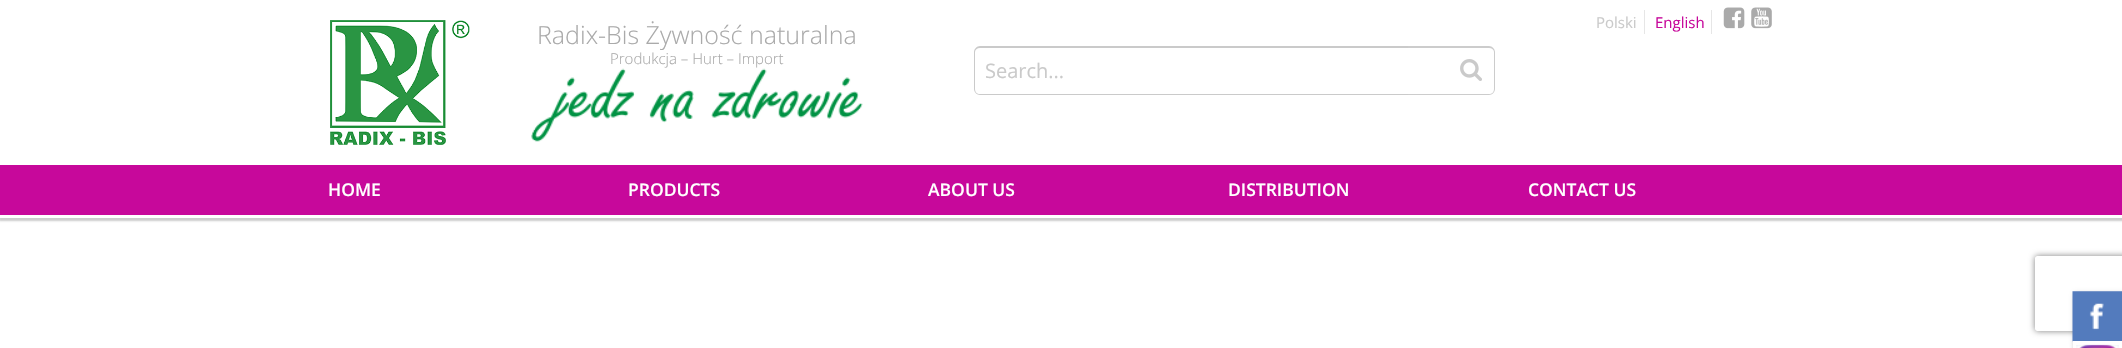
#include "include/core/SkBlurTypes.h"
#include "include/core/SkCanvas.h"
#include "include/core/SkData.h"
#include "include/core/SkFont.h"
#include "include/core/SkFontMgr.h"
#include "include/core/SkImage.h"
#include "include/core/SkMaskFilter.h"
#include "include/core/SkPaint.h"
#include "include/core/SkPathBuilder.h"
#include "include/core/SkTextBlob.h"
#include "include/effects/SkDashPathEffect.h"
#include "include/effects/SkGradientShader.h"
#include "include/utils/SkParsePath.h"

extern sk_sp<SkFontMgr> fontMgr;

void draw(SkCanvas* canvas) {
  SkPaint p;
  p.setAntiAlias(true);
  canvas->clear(SK_ColorWHITE);
  canvas->drawImageRect(SkImages::DeferredFromEncodedData(SkData::MakeFromFileName("images/1.png")), SkRect::MakeLTRB(330, 20, 470, 145), SkSamplingOptions());
  canvas->drawImageRect(SkImages::DeferredFromEncodedData(SkData::MakeFromFileName("images/2.png")), SkRect::MakeLTRB(531, 68, 863, 142), SkSamplingOptions());
  p.setColor(SkColorSetRGB(230, 230, 230));
  canvas->drawRect(SkRect::MakeLTRB(1644, 10, 1645, 34), p);
  canvas->drawRect(SkRect::MakeLTRB(1711, 10, 1712, 34), p);
  canvas->drawImageRect(SkImages::DeferredFromEncodedData(SkData::MakeFromFileName("images/3.png")), SkRect::MakeLTRB(1723, 7, 1745, 29), SkSamplingOptions());
  canvas->drawImageRect(SkImages::DeferredFromEncodedData(SkData::MakeFromFileName("images/4.png")), SkRect::MakeLTRB(1751, 7, 1772, 29), SkSamplingOptions());
  p.setColor(SkColorSetRGB(202, 202, 202));
  canvas->drawPath(SkPathBuilder(SkPathFillType::kEvenOdd).moveTo(980, 46).lineTo(1408, 46).lineTo(1408, 95).lineTo(980, 95).cubicTo(977, 95, 974, 92, 974, 89).lineTo(974, 52).cubicTo(974, 49, 977, 46, 980, 46).close().moveTo(980, 48).lineTo(1408, 48).lineTo(1408, 94).lineTo(980, 94).cubicTo(977, 94, 975, 92, 975, 89).lineTo(975, 52).cubicTo(975, 50, 977, 48, 980, 48).close().detach(), p);
  p.setColor(SkColorSetRGB(204, 204, 204));
  canvas->drawPath(SkPathBuilder(SkPathFillType::kEvenOdd).moveTo(1408, 46).lineTo(1489, 46).cubicTo(1492, 46, 1495, 49, 1495, 52).lineTo(1495, 89).cubicTo(1495, 92, 1492, 95, 1489, 95).lineTo(1408, 95).close().moveTo(1408, 48).lineTo(1489, 48).cubicTo(1492, 48, 1494, 50, 1494, 52).lineTo(1494, 89).cubicTo(1494, 92, 1492, 94, 1489, 94).lineTo(1408, 94).close().detach(), p);
  canvas->drawImageRect(SkImages::DeferredFromEncodedData(SkData::MakeFromFileName("images/5.png")), SkRect::MakeLTRB(1460, 59, 1482, 81), SkSamplingOptions());
  p.setColor(SkColorSetARGB(51, 0, 0, 0));
  p.setMaskFilter(SkMaskFilter::MakeBlur(kNormal_SkBlurStyle, 1));
  canvas->drawRect(SkRect::MakeLTRB(-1, 216, 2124, 221), p);
  p.setMaskFilter(nullptr);
  p.setColor(SkColorSetRGB(199, 8, 155));
  canvas->drawRect(SkRect::MakeLTRB(0, 165, 2122, 215), p);
  p.setColor(SK_ColorWHITE);
  canvas->drawRect(SkRect::MakeLTRB(0, 215, 2122, 218), p);
  canvas->save();
  canvas->clipPath(SkPathBuilder(SkPathFillType::kEvenOdd).moveTo(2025, 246).lineTo(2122, 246).lineTo(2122, 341).lineTo(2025, 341).close().moveTo(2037.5f, 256).lineTo(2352.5f, 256).cubicTo(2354, 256, 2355, 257, 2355, 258.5f).lineTo(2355, 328.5f).cubicTo(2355, 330, 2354, 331, 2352.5f, 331).lineTo(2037.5f, 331).cubicTo(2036, 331, 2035, 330, 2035, 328.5f).lineTo(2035, 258.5f).cubicTo(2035, 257, 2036, 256, 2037.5f, 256).close().detach(), true);
  p.setColor(SkColorSetRGB(128, 128, 128));
  p.setMaskFilter(SkMaskFilter::MakeBlur(kNormal_SkBlurStyle, 3));
  canvas->drawRoundRect(SkRect::MakeLTRB(2035, 256, 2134, 331), 2.5f, 2.5f, p);
  p.setMaskFilter(nullptr);
  canvas->restore();
  p.setColor(SkColorSetARGB(102, 0, 0, 0));
  p.setMaskFilter(SkMaskFilter::MakeBlur(kNormal_SkBlurStyle, 2.5f));
  canvas->drawRect(SkRect::MakeLTRB(2075, 294, 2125, 344), p);
  p.setMaskFilter(nullptr);
  p.setMaskFilter(SkMaskFilter::MakeBlur(kNormal_SkBlurStyle, 2.5f));
  canvas->drawRect(SkRect::MakeLTRB(2075, 344, 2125, 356), p);
  p.setMaskFilter(nullptr);
  canvas->drawImageRect(SkImages::DeferredFromEncodedData(SkData::MakeFromFileName("images/6.png")), SkRect::MakeLTRB(2072, 291, 2122, 342), SkSamplingOptions());
  canvas->drawImageRect(SkImages::DeferredFromEncodedData(SkData::MakeFromFileName("images/7.png")), SkRect::MakeLTRB(2073, 341, 2122, 348), SkSamplingOptions());
  SkFont font1(fontMgr->matchFamilyStyle("Open Sans", SkFontStyle(300, SkFontStyle::kNormal_Width, SkFontStyle::kUpright_Slant)), 25);
  font1.setSubpixel(true);
  p.setColor(SkColorSetRGB(170, 170, 170));
  canvas->drawString("Radix-Bis Żywność naturalna", 537, 44, font1, p);
  SkFont font2(fontMgr->matchFamilyStyle("Open Sans", SkFontStyle(300, SkFontStyle::kNormal_Width, SkFontStyle::kUpright_Slant)), 15);
  font2.setSubpixel(true);
  canvas->drawString("Produkcja – Hurt – Import", 610, 64, font2, p);
  SkFont font3(fontMgr->matchFamilyStyle("Open Sans", SkFontStyle::Normal()), 15);
  font3.setSubpixel(true);
  p.setColor(SkColorSetRGB(202, 202, 202));
  canvas->drawString("Polski", 1596, 28, font3, p);
  p.setColor(SkColorSetRGB(199, 8, 155));
  canvas->drawString("English", 1655, 28, font3, p);
  SkFont font4(fontMgr->matchFamilyStyle("Open Sans", SkFontStyle::Normal()), 20);
  font4.setSubpixel(true);
  p.setColor(SkColorSetRGB(202, 202, 202));
  canvas->drawString("Search...", 985, 78, font4, p);
  SkFont font5(fontMgr->matchFamilyStyle("Open Sans", SkFontStyle(600, SkFontStyle::kNormal_Width, SkFontStyle::kUpright_Slant)), 17.5f);
  font5.setSubpixel(true);
  p.setColor(SK_ColorWHITE);
  canvas->drawString("HOME", 328, 196, font5, p);
  canvas->drawString("PRODUCTS", 628, 196, font5, p);
  canvas->drawString("ABOUT US", 928, 196, font5, p);
  canvas->drawString("DISTRIBUTION", 1228, 196, font5, p);
  canvas->drawString("CONTACT US", 1528, 196, font5, p);
}
